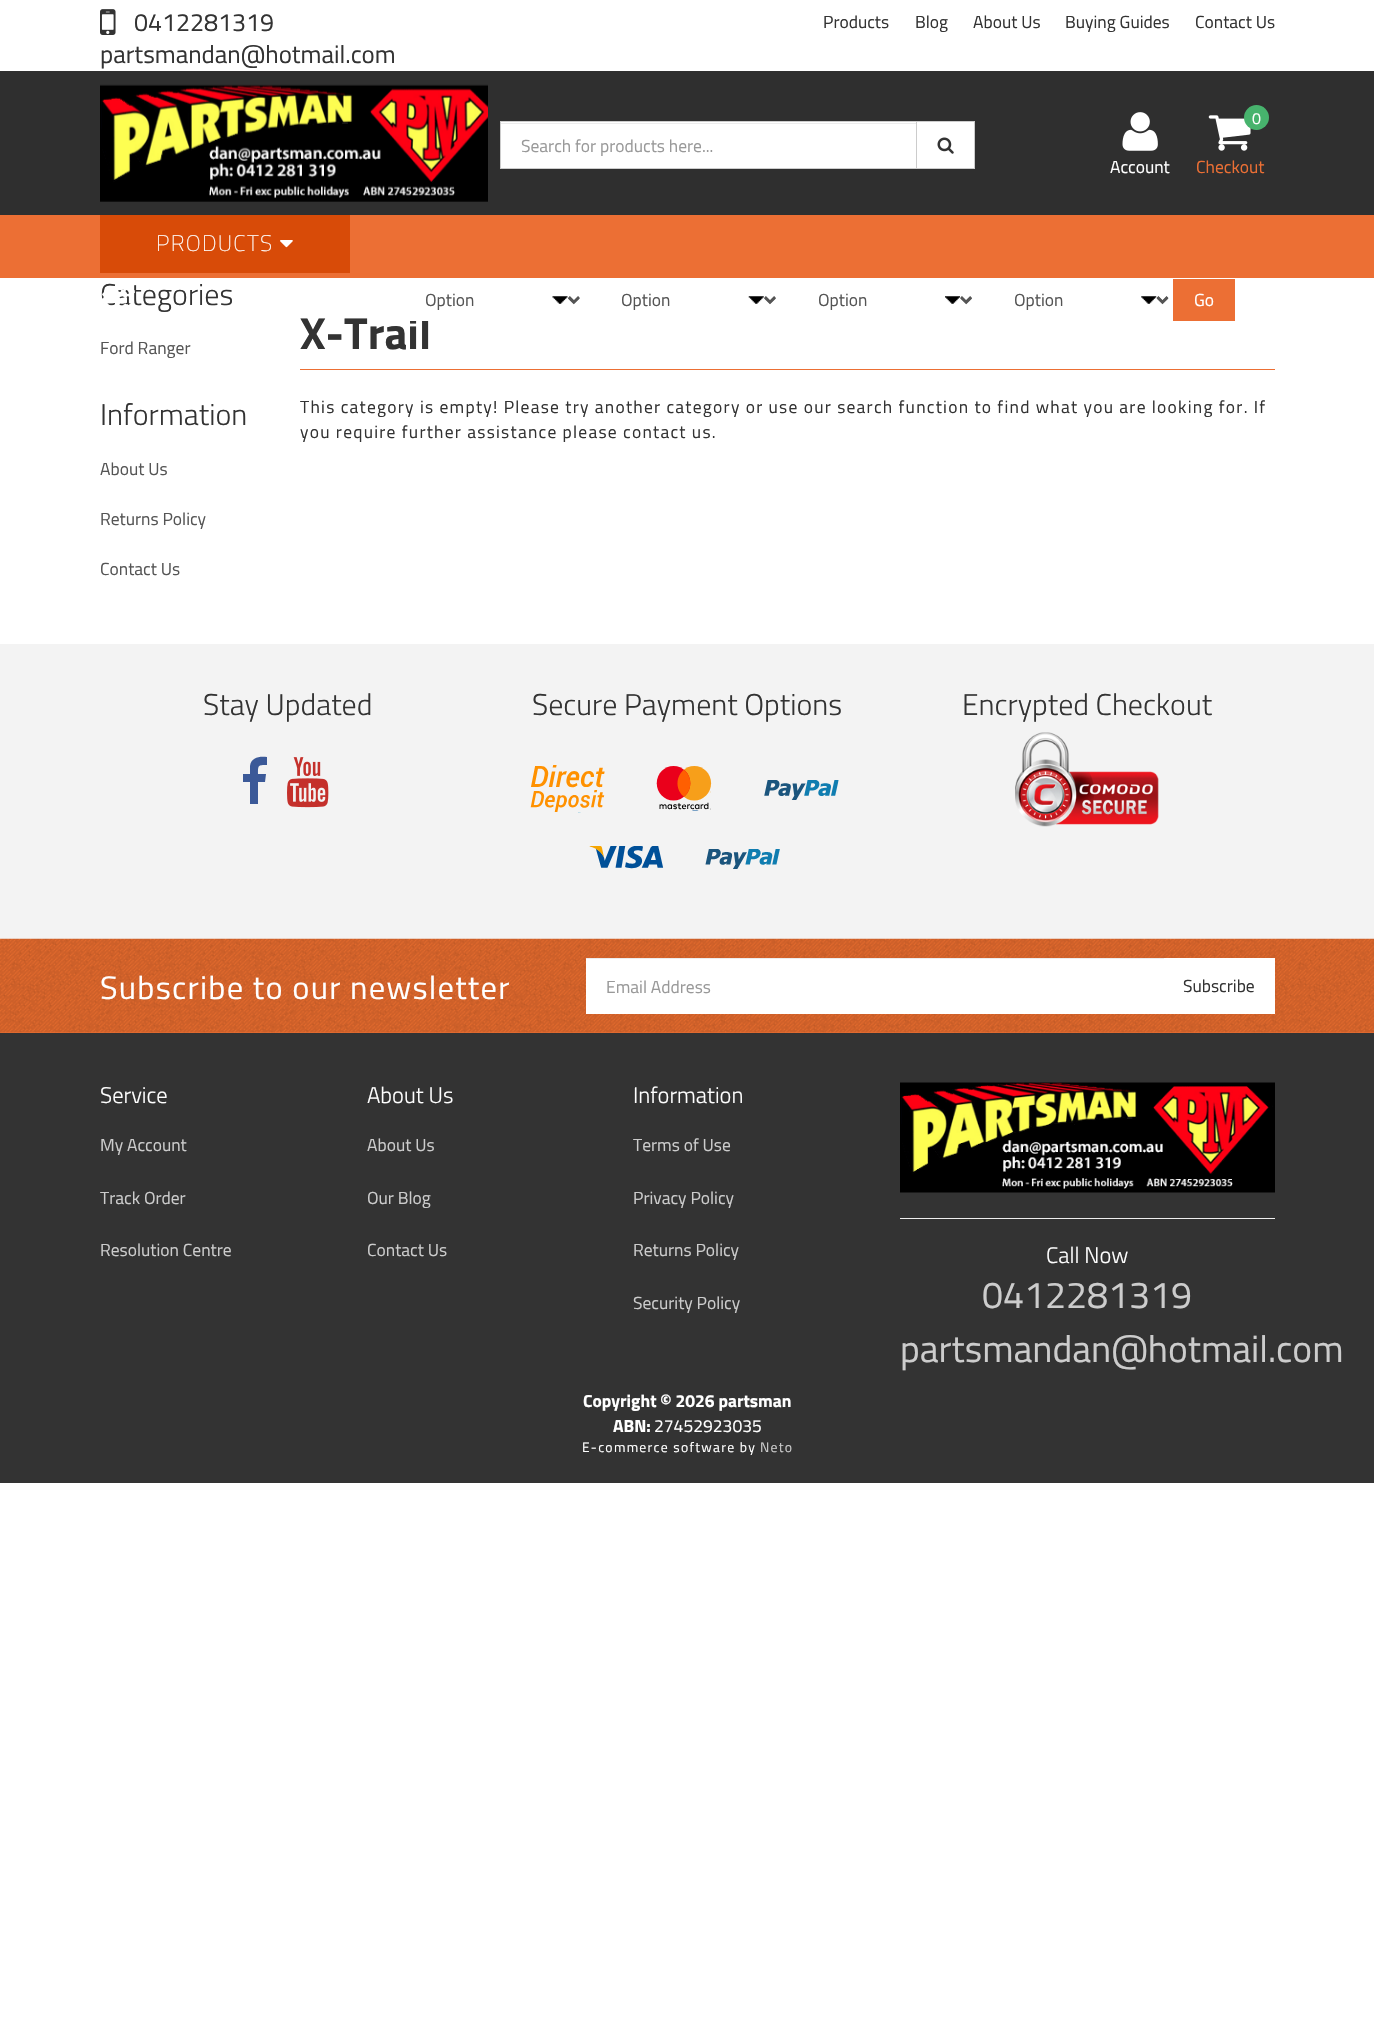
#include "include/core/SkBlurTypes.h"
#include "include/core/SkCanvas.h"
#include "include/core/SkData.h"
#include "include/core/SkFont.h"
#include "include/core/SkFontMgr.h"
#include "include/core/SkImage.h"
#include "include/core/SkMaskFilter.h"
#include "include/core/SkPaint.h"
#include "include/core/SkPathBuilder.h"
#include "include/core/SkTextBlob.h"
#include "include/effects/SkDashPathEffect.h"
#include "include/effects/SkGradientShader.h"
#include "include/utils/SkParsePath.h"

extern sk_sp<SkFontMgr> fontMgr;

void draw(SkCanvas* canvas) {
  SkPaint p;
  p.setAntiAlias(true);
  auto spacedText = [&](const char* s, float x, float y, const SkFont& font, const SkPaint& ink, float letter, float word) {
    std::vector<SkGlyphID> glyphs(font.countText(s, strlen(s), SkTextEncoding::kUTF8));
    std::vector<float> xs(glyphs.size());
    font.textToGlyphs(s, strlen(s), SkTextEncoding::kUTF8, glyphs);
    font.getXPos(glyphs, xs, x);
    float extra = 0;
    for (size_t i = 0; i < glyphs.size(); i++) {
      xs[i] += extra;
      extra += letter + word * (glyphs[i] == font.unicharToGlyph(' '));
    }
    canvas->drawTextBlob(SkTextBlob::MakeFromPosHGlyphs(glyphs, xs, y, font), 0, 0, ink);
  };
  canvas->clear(SK_ColorWHITE);
  canvas->drawImageRect(SkImages::DeferredFromEncodedData(SkData::MakeFromFileName("images/1.png")), SkRect::MakeLTRB(100, 9, 116, 35), SkSamplingOptions());
  p.setColor(SkColorSetRGB(47, 47, 47));
  canvas->drawRect(SkRect::MakeLTRB(0, 71, 1374, 215), p);
  canvas->drawImageRect(SkImages::DeferredFromEncodedData(SkData::MakeFromFileName("images/2.png")), SkRect::MakeLTRB(100, 84, 488, 202), SkSamplingOptions());
  p.setColor(SK_ColorWHITE);
  canvas->drawRect(SkRect::MakeLTRB(501, 122, 916, 168), p);
  p.setColor(SkColorSetRGB(236, 236, 236));
  canvas->drawRect(SkRect::MakeLTRB(501, 123, 916, 124), p);
  p.setStyle(SkPaint::kStroke_Style);
  p.setStrokeWidth(1);
  p.setColor(SkColorSetRGB(204, 204, 204));
  canvas->drawRect(SkRect::MakeLTRB(500.5f, 121.5f, 917.5f, 168.5f), p);
  p.setStyle(SkPaint::kFill_Style);
  p.setColor(SK_ColorWHITE);
  canvas->drawRect(SkRect::MakeLTRB(916.5f, 121.5f, 974.5f, 168.5f), p);
  p.setStyle(SkPaint::kStroke_Style);
  p.setColor(SkColorSetRGB(204, 204, 204));
  canvas->drawRect(SkRect::MakeLTRB(916.5f, 121.5f, 974.5f, 168.5f), p);
  canvas->drawImageRect(SkImages::DeferredFromEncodedData(SkData::MakeFromFileName("images/3.png")), SkRect::MakeLTRB(937, 137, 954, 154), SkSamplingOptions());
  canvas->drawImageRect(SkImages::DeferredFromEncodedData(SkData::MakeFromFileName("images/4.png")), SkRect::MakeLTRB(1122, 112, 1158, 151), SkSamplingOptions());
  canvas->drawImageRect(SkImages::DeferredFromEncodedData(SkData::MakeFromFileName("images/5.png")), SkRect::MakeLTRB(1208, 115, 1251, 151), SkSamplingOptions());
  p.setStyle(SkPaint::kFill_Style);
  p.setColor(SkColorSetRGB(71, 179, 109));
  canvas->drawCircle(1256.5f, 117.5f, 12.5f, p);
  p.setColor(SkColorSetRGB(236, 111, 52));
  canvas->drawRect(SkRect::MakeLTRB(0, 215, 1374, 278), p);
  p.setColor(SkColorSetRGB(216, 75, 8));
  canvas->drawRect(SkRect::MakeLTRB(100, 215, 350, 273), p);
  canvas->drawImageRect(SkImages::DeferredFromEncodedData(SkData::MakeFromFileName("images/6.png")), SkRect::MakeLTRB(280, 240, 293, 248), SkSamplingOptions());
  canvas->drawImageRect(SkImages::DeferredFromEncodedData(SkData::MakeFromFileName("images/8.png")), SkRect::MakeLTRB(552, 296, 580, 305), SkSamplingOptions());
  p.setStyle(SkPaint::kStroke_Style);
  p.setStrokeWidth(2.5f);
  p.setColor(SkColorSetRGB(85, 85, 85));
  canvas->drawPath(SkPathBuilder().moveTo(569, 297).lineTo(574, 302).lineTo(579, 297).detach(), p);
  canvas->drawImageRect(SkImages::DeferredFromEncodedData(SkData::MakeFromFileName("images/9.png")), SkRect::MakeLTRB(748, 296, 776, 305), SkSamplingOptions());
  canvas->drawPath(SkPathBuilder().moveTo(765, 297).lineTo(770, 302).lineTo(775, 297).detach(), p);
  canvas->drawImageRect(SkImages::DeferredFromEncodedData(SkData::MakeFromFileName("images/10.png")), SkRect::MakeLTRB(945, 296, 972, 305), SkSamplingOptions());
  canvas->drawPath(SkPathBuilder().moveTo(961, 297).lineTo(966, 302).lineTo(971, 297).detach(), p);
  canvas->drawImageRect(SkImages::DeferredFromEncodedData(SkData::MakeFromFileName("images/11.png")), SkRect::MakeLTRB(1141, 296, 1169, 305), SkSamplingOptions());
  canvas->drawPath(SkPathBuilder().moveTo(1157.5f, 297).lineTo(1162.5f, 302).lineTo(1167.5f, 297).detach(), p);
  p.setStyle(SkPaint::kFill_Style);
  p.setColor(SkColorSetRGB(236, 111, 52));
  canvas->drawRect(SkRect::MakeLTRB(1173, 279, 1235, 321), p);
  canvas->drawRect(SkRect::MakeLTRB(300, 369, 1275, 370), p);
  p.setColor(SkColorSetRGB(243, 243, 243));
  canvas->drawRect(SkRect::MakeLTRB(0, 644, 1374, 939), p);
  p.setColor(SkColorSetRGB(59, 89, 152));
  canvas->drawPath(SkPathBuilder().moveTo(267, 757).lineTo(267, 765).cubicTo(258, 765, 258, 765, 258, 774).lineTo(266, 774).lineTo(265, 782).lineTo(258, 782).lineTo(258, 804).lineTo(250, 804).lineTo(250, 782).lineTo(243, 782).lineTo(243, 774).lineTo(250, 774).lineTo(250, 766).cubicTo(251, 757, 260, 756, 267, 757).close().detach(), p);
  canvas->drawImageRect(SkImages::DeferredFromEncodedData(SkData::MakeFromFileName("images/12.png")), SkRect::MakeLTRB(287, 757, 329, 808), SkSamplingOptions());
  canvas->drawImageRect(SkImages::DeferredFromEncodedData(SkData::MakeFromFileName("images/13.png")), SkRect::MakeLTRB(530, 765, 605, 813), SkSamplingOptions());
  canvas->drawImageRect(SkImages::DeferredFromEncodedData(SkData::MakeFromFileName("images/14.png")), SkRect::MakeLTRB(656, 766, 712, 811), SkSamplingOptions());
  canvas->drawImageRect(SkImages::DeferredFromEncodedData(SkData::MakeFromFileName("images/15.png")), SkRect::MakeLTRB(764, 780, 839, 800), SkSamplingOptions());
  canvas->drawImageRect(SkImages::DeferredFromEncodedData(SkData::MakeFromFileName("images/16.png")), SkRect::MakeLTRB(589, 846, 664, 869), SkSamplingOptions());
  canvas->drawImageRect(SkImages::DeferredFromEncodedData(SkData::MakeFromFileName("images/17.png")), SkRect::MakeLTRB(705, 849, 780, 869), SkSamplingOptions());
  canvas->drawImageRect(SkImages::DeferredFromEncodedData(SkData::MakeFromFileName("images/18.png")), SkRect::MakeLTRB(1015, 732, 1159, 827), SkSamplingOptions());
  p.setColor(SkColorSetRGB(236, 111, 52));
  canvas->drawRect(SkRect::MakeLTRB(0, 1032, 1374, 1033), p);
  canvas->drawImageRect(SkImages::DeferredFromEncodedData(SkData::MakeFromFileName("images/19.png")), SkRect::MakeLTRB(0, 938, 1374, 1033), SkSamplingOptions());
  p.setColor(SK_ColorWHITE);
  canvas->drawRect(SkRect::MakeLTRB(586, 959, 1164, 1014), p);
  p.setColor(SkColorSetRGB(236, 236, 236));
  canvas->drawRect(SkRect::MakeLTRB(586, 958, 1165, 959), p);
  p.setColor(SK_ColorWHITE);
  canvas->drawRect(SkRect::MakeLTRB(1164, 958, 1275, 1014), p);
  p.setColor(SkColorSetRGB(51, 51, 51));
  canvas->drawRect(SkRect::MakeLTRB(0, 1033, 1374, 1483), p);
  canvas->drawImageRect(SkImages::DeferredFromEncodedData(SkData::MakeFromFileName("images/20.png")), SkRect::MakeLTRB(900, 1082, 1275, 1193), SkSamplingOptions());
  p.setColor(SkColorSetRGB(238, 238, 238));
  canvas->drawRect(SkRect::MakeLTRB(900, 1218, 1275, 1219), p);
  SkFont font1(fontMgr->matchFamilyStyle("Titillium Web", SkFontStyle::Normal()), 25);
  font1.setSubpixel(true);
  p.setColor(SkColorSetRGB(51, 51, 51));
  canvas->drawString("0412281319", 134, 31, font1, p);
  canvas->drawString("partsmandan@hotmail.com", 100, 63, font1, p);
  SkFont font2(fontMgr->matchFamilyStyle("Titillium Web", SkFontStyle::Normal()), 17.5f);
  font2.setSubpixel(true);
  canvas->drawString("Products", 823, 28, font2, p);
  canvas->drawString("Blog", 915, 28, font2, p);
  canvas->drawString("About Us", 973, 28, font2, p);
  canvas->drawString("Buying Guides", 1065, 28, font2, p);
  canvas->drawString("Contact Us", 1195, 28, font2, p);
  p.setColor(SkColorSetRGB(153, 153, 153));
  canvas->drawString("Search for products here...", 521, 152, font2, p);
  p.setColor(SK_ColorWHITE);
  canvas->drawString("Account", 1110, 173, font2, p);
  SkFont font3(fontMgr->matchFamilyStyle("Titillium Web", SkFontStyle::Normal()), 16);
  font3.setSubpixel(true);
  canvas->drawString("0", 1252, 124, font3, p);
  p.setColor(SkColorSetRGB(236, 111, 52));
  canvas->drawString("Checkout", 1196, 173, font2, p);
  SkFont font4(fontMgr->matchFamilyStyle("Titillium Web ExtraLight", SkFontStyle(200, SkFontStyle::kNormal_Width, SkFontStyle::kUpright_Slant)), 22.5f);
  font4.setSubpixel(true);
  p.setColor(SK_ColorWHITE);
  spacedText("PRODUCTS", 156, 251, font4, p, 1.25f, 0);
  p.setColor(SkColorSetRGB(85, 85, 85));
  canvas->drawString("Option", 425, 306, font2, p);
  canvas->drawString("Option", 621, 306, font2, p);
  canvas->drawString("Option", 818, 306, font2, p);
  canvas->drawString("Option", 1014, 306, font2, p);
  p.setColor(SK_ColorWHITE);
  canvas->drawString("Go", 1194, 306, font2, p);
  SkFont font5(fontMgr->matchFamilyStyle("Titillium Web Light", SkFontStyle(300, SkFontStyle::kNormal_Width, SkFontStyle::kUpright_Slant)), 30);
  font5.setSubpixel(true);
  p.setColor(SkColorSetRGB(51, 51, 51));
  canvas->drawString("Categories", 100, 305, font5, p);
  canvas->drawImageRect(SkImages::DeferredFromEncodedData(SkData::MakeFromFileName("images/7.png")), SkRect::MakeLTRB(102, 289, 135, 306), SkSamplingOptions());
  p.setColor(SkColorSetRGB(85, 85, 85));
  canvas->drawString("Ford Ranger", 100, 354, font2, p);
  p.setColor(SkColorSetRGB(51, 51, 51));
  canvas->drawString("Information", 100, 425, font5, p);
  p.setColor(SkColorSetRGB(85, 85, 85));
  canvas->drawString("About Us", 100, 475, font2, p);
  canvas->drawString("Returns Policy", 100, 525, font2, p);
  canvas->drawString("Contact Us", 100, 575, font2, p);
  SkFont font6(fontMgr->matchFamilyStyle("Titillium Web", SkFontStyle::Bold()), 45);
  font6.setSubpixel(true);
  p.setColor(SkColorSetRGB(51, 51, 51));
  canvas->drawString("X-Trail", 300, 349, font6, p);
  p.setColor(SK_ColorWHITE);
  canvas->drawRect(SkRect::MakeLTRB(410, 317, 429, 321), p);
  p.setColor(SkColorSetRGB(51, 51, 51));
  spacedText("This category is empty! Please try another category or use our search function to find what you are looking for. If", 300, 413, font2, p, 1.25f, 0);
  spacedText("you require further assistance please contact us.", 300, 438, font2, p, 1.25f, 0);
  canvas->drawString("Stay Updated", 203, 715, font5, p);
  canvas->drawString("Secure Payment Options", 532, 715, font5, p);
  canvas->drawString("Encrypted Checkout", 962, 715, font5, p);
  SkFont font7(fontMgr->matchFamilyStyle("Titillium Web", SkFontStyle::Normal()), 32.5f);
  font7.setSubpixel(true);
  p.setColor(SK_ColorWHITE);
  spacedText("Subscribe to our newsletter", 100, 999, font7, p, 1.25f, 0);
  p.setColor(SkColorSetRGB(153, 153, 153));
  canvas->drawString("Email Address", 606, 993, font2, p);
  p.setColor(SkColorSetRGB(51, 51, 51));
  canvas->drawString("Subscribe", 1183, 992, font2, p);
  SkFont font8(fontMgr->matchFamilyStyle("Titillium Web Light", SkFontStyle(300, SkFontStyle::kNormal_Width, SkFontStyle::kUpright_Slant)), 22.5f);
  font8.setSubpixel(true);
  p.setColor(SK_ColorWHITE);
  canvas->drawString("Service", 100, 1103, font8, p);
  p.setColor(SkColorSetRGB(204, 204, 204));
  canvas->drawString("My Account", 100, 1151, font2, p);
  canvas->drawString("Track Order", 100, 1204, font2, p);
  canvas->drawString("Resolution Centre", 100, 1256, font2, p);
  p.setColor(SK_ColorWHITE);
  canvas->drawString("About Us", 367, 1103, font8, p);
  p.setColor(SkColorSetRGB(204, 204, 204));
  canvas->drawString("About Us", 367, 1151, font2, p);
  canvas->drawString("Our Blog", 367, 1204, font2, p);
  canvas->drawString("Contact Us", 367, 1256, font2, p);
  p.setColor(SK_ColorWHITE);
  canvas->drawString("Information", 633, 1103, font8, p);
  p.setColor(SkColorSetRGB(204, 204, 204));
  canvas->drawString("Terms of Use", 633, 1151, font2, p);
  canvas->drawString("Privacy Policy", 633, 1204, font2, p);
  canvas->drawString("Returns Policy", 633, 1256, font2, p);
  canvas->drawString("Security Policy", 633, 1309, font2, p);
  p.setColor(SK_ColorWHITE);
  canvas->drawString("Call Now", 1046, 1263, font8, p);
  SkFont font9(fontMgr->matchFamilyStyle("Titillium Web", SkFontStyle::Normal()), 37.5f);
  font9.setSubpixel(true);
  p.setColor(SkColorSetRGB(204, 204, 204));
  canvas->drawString("0412281319", 982, 1308, font9, p);
  canvas->drawString("partsmandan@hotmail.com", 900, 1362, font9, p);
  SkFont font10(fontMgr->matchFamilyStyle("Titillium Web", SkFontStyle::Bold()), 17.5f);
  font10.setSubpixel(true);
  p.setColor(SK_ColorWHITE);
  canvas->drawString("Copyright © 2026 partsman", 583, 1407, font10, p);
  canvas->drawString("ABN:", 613, 1432, font10, p);
  canvas->drawString("27452923035", 654, 1432, font2, p);
  SkFont font11(fontMgr->matchFamilyStyle("Titillium Web", SkFontStyle::Normal()), 13.75f);
  font11.setSubpixel(true);
  spacedText("E-commerce software by", 582, 1452, font11, p, 1.25f, 0);
  p.setColor(SkColorSetRGB(204, 204, 204));
  spacedText("Neto", 760, 1452, font11, p, 1.25f, 0);
}
